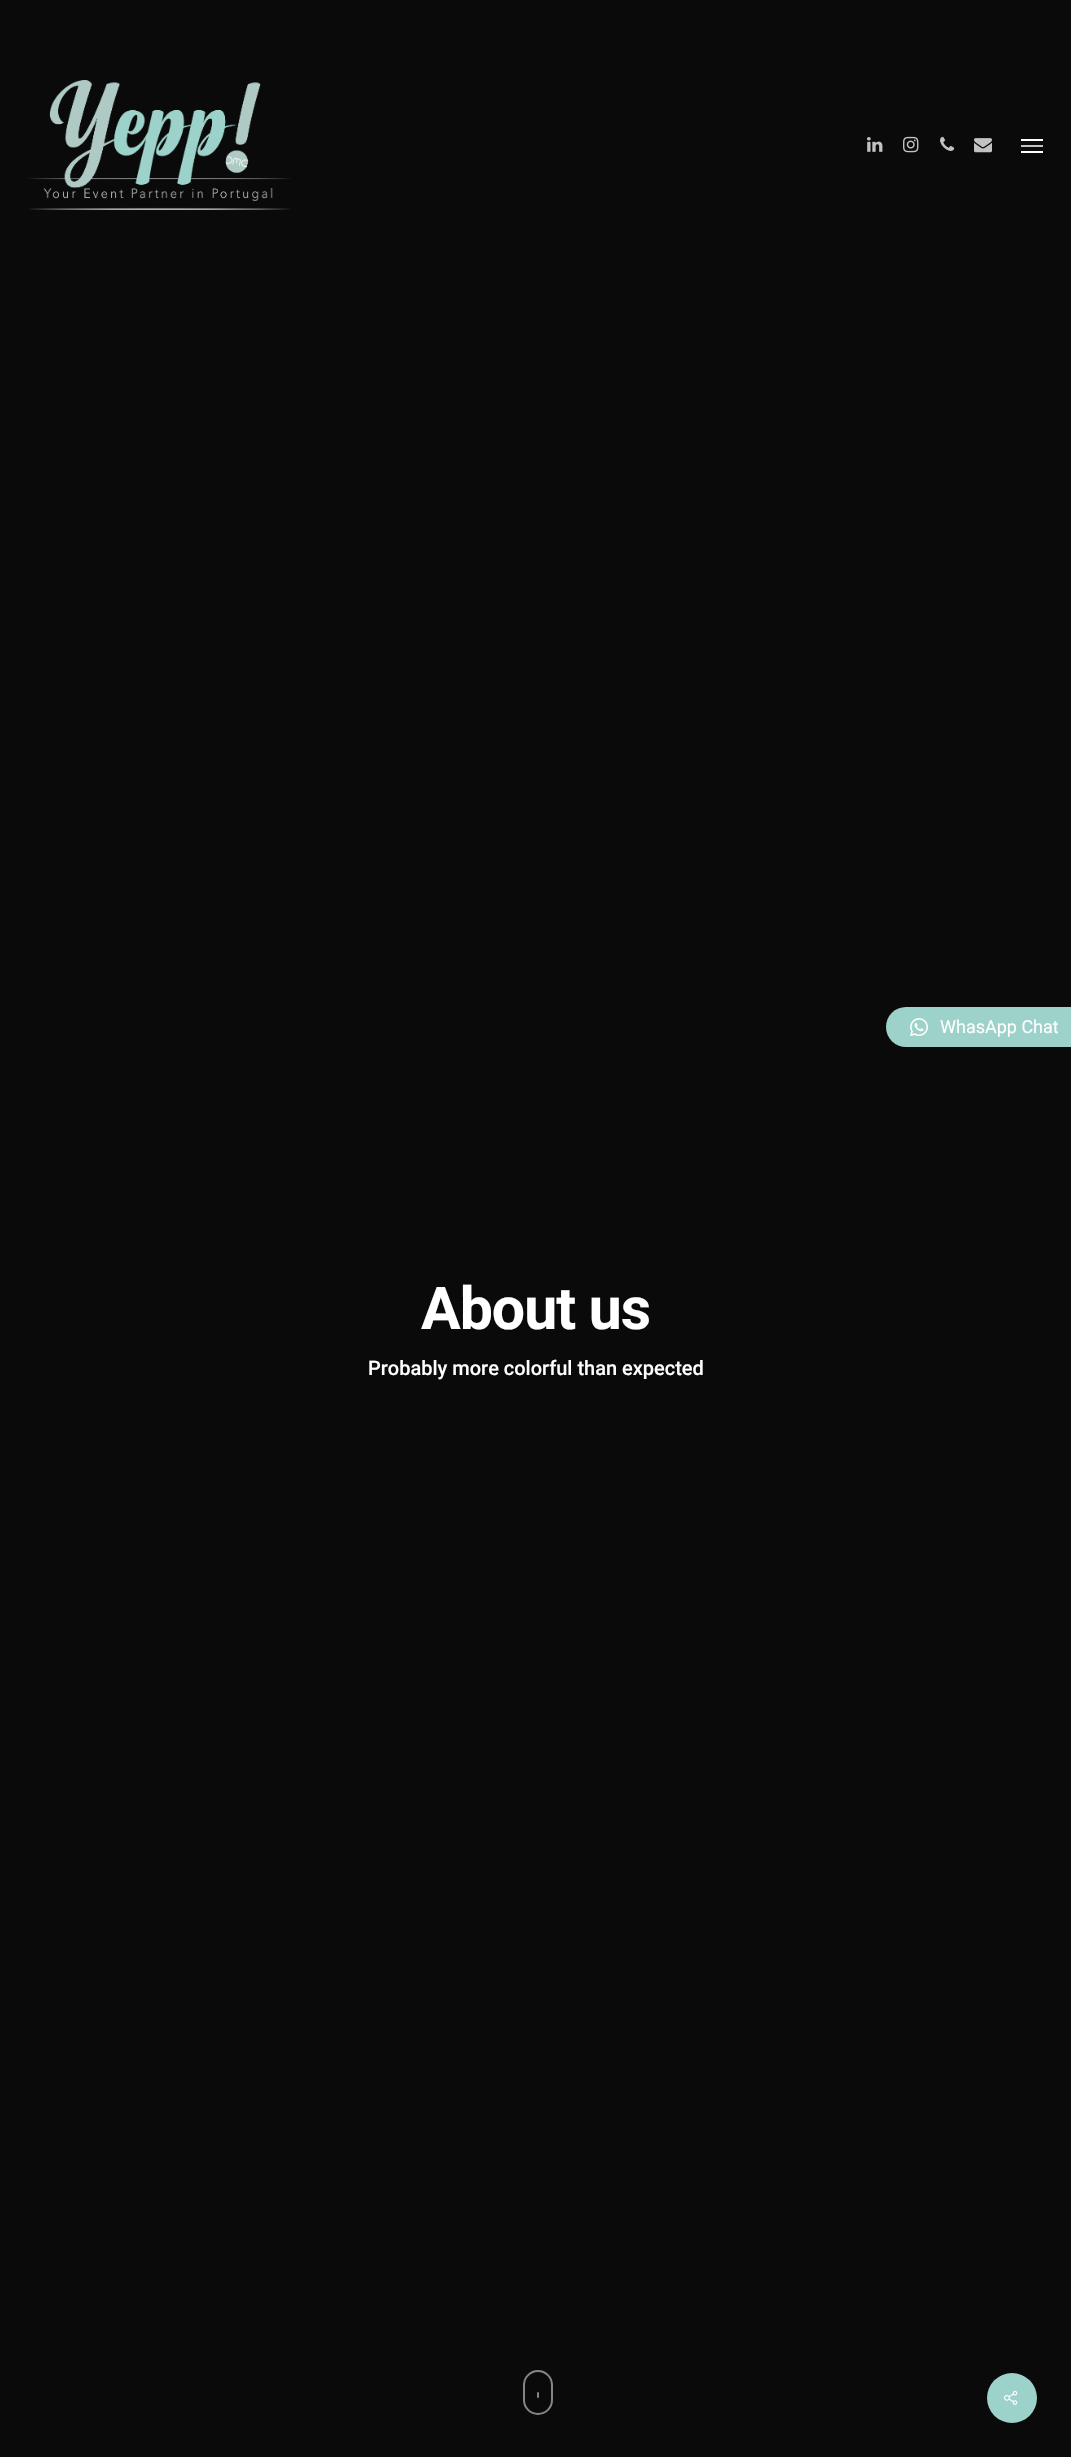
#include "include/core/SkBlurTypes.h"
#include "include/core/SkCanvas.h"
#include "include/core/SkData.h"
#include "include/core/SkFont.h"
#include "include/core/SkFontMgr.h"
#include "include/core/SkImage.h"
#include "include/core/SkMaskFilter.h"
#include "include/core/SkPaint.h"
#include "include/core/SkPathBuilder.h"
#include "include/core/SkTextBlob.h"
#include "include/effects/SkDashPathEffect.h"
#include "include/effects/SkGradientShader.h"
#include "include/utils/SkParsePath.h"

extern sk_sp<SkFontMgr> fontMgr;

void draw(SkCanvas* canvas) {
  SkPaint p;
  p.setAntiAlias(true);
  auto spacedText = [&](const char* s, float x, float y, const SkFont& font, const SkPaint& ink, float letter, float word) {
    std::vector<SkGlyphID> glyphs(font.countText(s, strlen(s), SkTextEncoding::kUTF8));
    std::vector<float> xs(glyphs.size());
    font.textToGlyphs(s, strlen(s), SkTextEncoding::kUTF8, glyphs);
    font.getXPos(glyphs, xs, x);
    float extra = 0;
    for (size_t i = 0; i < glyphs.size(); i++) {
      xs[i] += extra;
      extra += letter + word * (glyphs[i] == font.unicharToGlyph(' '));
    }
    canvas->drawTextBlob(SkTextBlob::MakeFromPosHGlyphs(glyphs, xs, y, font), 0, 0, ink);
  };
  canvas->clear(SkColorSetRGB(10, 10, 10));
  canvas->drawImageRect(SkImages::DeferredFromEncodedData(SkData::MakeFromFileName("images/1.png")), SkRect::MakeLTRB(28, 80, 291, 210), SkSamplingOptions());
  canvas->drawImageRect(SkImages::DeferredFromEncodedData(SkData::MakeFromFileName("images/2.png")), SkRect::MakeLTRB(867, 137, 883, 152), SkSamplingOptions());
  canvas->drawImageRect(SkImages::DeferredFromEncodedData(SkData::MakeFromFileName("images/3.png")), SkRect::MakeLTRB(903, 136, 919, 153), SkSamplingOptions());
  canvas->drawImageRect(SkImages::DeferredFromEncodedData(SkData::MakeFromFileName("images/4.png")), SkRect::MakeLTRB(940, 136, 955, 151), SkSamplingOptions());
  canvas->drawImageRect(SkImages::DeferredFromEncodedData(SkData::MakeFromFileName("images/5.png")), SkRect::MakeLTRB(974, 138, 992, 153), SkSamplingOptions());
  p.setColor(SK_ColorWHITE);
  canvas->drawRect(SkRect::MakeLTRB(1021, 139, 1043, 141), p);
  canvas->drawRect(SkRect::MakeLTRB(1021, 151, 1043, 153), p);
  p.setColor(SkColorSetRGB(194, 194, 194));
  canvas->drawRect(SkRect::MakeLTRB(1021, 145, 1043, 147), p);
  p.setColor(SkColorSetRGB(156, 210, 202));
  canvas->drawRoundRect(SkRect::MakeLTRB(886, 1007, 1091, 1047), 20, 20, p);
  canvas->drawImageRect(SkImages::DeferredFromEncodedData(SkData::MakeFromFileName("images/6.png")), SkRect::MakeLTRB(910, 1018, 928, 1036), SkSamplingOptions());
  p.setColor(SkColorSetRGB(133, 133, 133));
  canvas->drawRoundRect(SkRect::MakeLTRB(537, 2392, 539, 2398), 1, 1, p);
  p.setStyle(SkPaint::kStroke_Style);
  p.setStrokeWidth(2);
  canvas->drawRoundRect(SkRect::MakeLTRB(524, 2371, 552, 2414), 14, 14, p);
  p.setStyle(SkPaint::kFill_Style);
  p.setColor(SkColorSetRGB(156, 210, 202));
  canvas->drawCircle(1012, 2398, 25, p);
  canvas->drawImageRect(SkImages::DeferredFromEncodedData(SkData::MakeFromFileName("images/7.png")), SkRect::MakeLTRB(1004, 2390, 1018, 2405), SkSamplingOptions());
  SkFont font1(fontMgr->matchFamilyStyle("Roboto", SkFontStyle::Normal()), 18);
  font1.setSubpixel(true);
  p.setColor(SK_ColorWHITE);
  canvas->drawString("WhasApp Chat", 940, 1033, font1, p);
  SkFont font2(fontMgr->matchFamilyStyle("Roboto", SkFontStyle::Bold()), 59);
  font2.setSubpixel(true);
  spacedText("About us", 421, 1329, font2, p, -1, 0);
  SkFont font3(fontMgr->matchFamilyStyle("Roboto", SkFontStyle(500, SkFontStyle::kNormal_Width, SkFontStyle::kUpright_Slant)), 20);
  font3.setSubpixel(true);
  canvas->drawString("Probably more colorful than expected", 368, 1375, font3, p);
}
